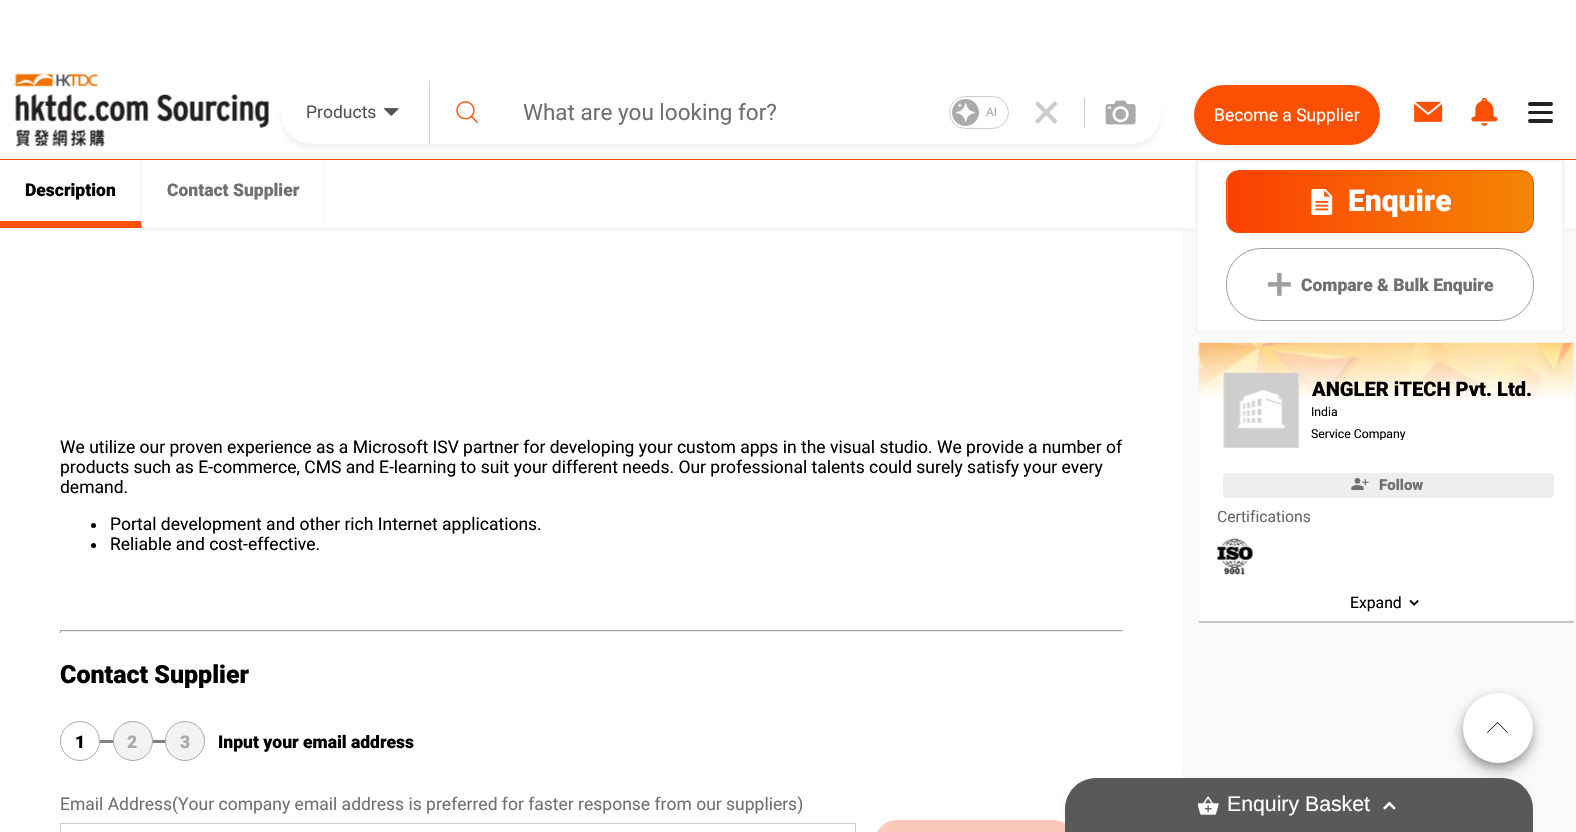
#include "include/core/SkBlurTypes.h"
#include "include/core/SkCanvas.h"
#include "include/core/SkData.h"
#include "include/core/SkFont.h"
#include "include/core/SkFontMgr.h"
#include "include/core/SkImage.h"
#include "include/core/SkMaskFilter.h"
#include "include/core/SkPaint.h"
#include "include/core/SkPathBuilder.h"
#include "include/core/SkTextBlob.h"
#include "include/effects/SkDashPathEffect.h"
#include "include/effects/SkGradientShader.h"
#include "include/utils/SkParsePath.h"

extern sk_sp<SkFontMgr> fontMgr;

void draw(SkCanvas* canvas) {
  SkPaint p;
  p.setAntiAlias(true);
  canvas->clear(SkColorSetRGB(250, 250, 250));
  p.setColor(SK_ColorWHITE);
  canvas->drawRect(SkRect::MakeLTRB(0, 0, 1576, 159), p);
  canvas->drawRect(SkRect::MakeLTRB(0, 160, 1576, 228), p);
  p.setColor(SkColorSetRGB(245, 245, 245));
  canvas->drawPath(SkPathBuilder().moveTo(142, 159).lineTo(142, 228).lineTo(141, 221).lineTo(141, 159).close().detach(), p);
  canvas->drawRect(SkRect::MakeLTRB(324, 159, 325, 228), p);
  canvas->drawRect(SkRect::MakeLTRB(0, 228, 1576, 231), p);
  p.setColor(SK_ColorWHITE);
  canvas->drawRect(SkRect::MakeLTRB(1198, 228, 1562, 330), p);
  p.setStyle(SkPaint::kStroke_Style);
  p.setStrokeWidth(3);
  p.setColor(SkColorSetRGB(245, 245, 245));
  canvas->drawRect(SkRect::MakeLTRB(1196.5f, 160.5f, 1563.5f, 331.5f), p);
  p.setStyle(SkPaint::kFill_Style);
  p.setColor(SkColorSetRGB(251, 80, 4));
  canvas->drawRect(SkRect::MakeLTRB(0, 159, 1576, 160), p);
  canvas->drawImageRect(SkImages::DeferredFromEncodedData(SkData::MakeFromFileName("images/1.png")), SkRect::MakeLTRB(12, 73, 269, 147), SkSamplingOptions());
  canvas->save();
  canvas->clipPath(SkPathBuilder(SkPathFillType::kEvenOdd).moveTo(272, 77).lineTo(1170, 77).lineTo(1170, 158).lineTo(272, 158).close().moveTo(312.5f, 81).lineTo(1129.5f, 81).cubicTo(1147, 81, 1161, 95, 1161, 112.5f).cubicTo(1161, 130, 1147, 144, 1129.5f, 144).lineTo(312.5f, 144).cubicTo(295, 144, 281, 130, 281, 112.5f).cubicTo(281, 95, 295, 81, 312.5f, 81).close().detach(), true);
  p.setColor(SkColorSetARGB(26, 127, 127, 127));
  p.setMaskFilter(SkMaskFilter::MakeBlur(kNormal_SkBlurStyle, 2.5f));
  canvas->drawRoundRect(SkRect::MakeLTRB(281, 86, 1161, 149), 31.5f, 31.5f, p);
  p.setMaskFilter(nullptr);
  canvas->restore();
  p.setColor(SkColorSetRGB(207, 207, 207));
  canvas->drawRect(SkRect::MakeLTRB(429, 81, 430, 144), p);
  canvas->drawImageRect(SkImages::DeferredFromEncodedData(SkData::MakeFromFileName("images/2.png")), SkRect::MakeLTRB(383, 108, 399, 116), SkSamplingOptions());
  canvas->drawImageRect(SkImages::DeferredFromEncodedData(SkData::MakeFromFileName("images/3.png")), SkRect::MakeLTRB(456, 101, 479, 123), SkSamplingOptions());
  p.setStyle(SkPaint::kStroke_Style);
  p.setStrokeWidth(1);
  p.setColor(SkColorSetRGB(204, 204, 204));
  canvas->drawRoundRect(SkRect::MakeLTRB(949.5f, 96.5f, 1008.5f, 128.5f), 16, 16, p);
  canvas->drawImageRect(SkImages::DeferredFromEncodedData(SkData::MakeFromFileName("images/4.png")), SkRect::MakeLTRB(952, 99, 979, 126), SkSamplingOptions());
  canvas->drawImageRect(SkImages::DeferredFromEncodedData(SkData::MakeFromFileName("images/5.png")), SkRect::MakeLTRB(1035, 101, 1058, 124), SkSamplingOptions());
  p.setStyle(SkPaint::kFill_Style);
  canvas->drawRect(SkRect::MakeLTRB(1084, 98, 1085, 128), p);
  canvas->drawImageRect(SkImages::DeferredFromEncodedData(SkData::MakeFromFileName("images/6.png")), SkRect::MakeLTRB(1105, 100, 1136, 125), SkSamplingOptions());
  p.setColor(SkColorSetRGB(251, 80, 4));
  canvas->drawRoundRect(SkRect::MakeLTRB(1194, 85, 1380, 145), 30, 30, p);
  canvas->drawImageRect(SkImages::DeferredFromEncodedData(SkData::MakeFromFileName("images/7.png")), SkRect::MakeLTRB(1414, 101, 1443, 122), SkSamplingOptions());
  canvas->drawImageRect(SkImages::DeferredFromEncodedData(SkData::MakeFromFileName("images/8.png")), SkRect::MakeLTRB(1471, 98, 1498, 126), SkSamplingOptions());
  p.setColor(SkColorSetRGB(34, 34, 34));
  canvas->drawRoundRect(SkRect::MakeLTRB(1528, 102, 1553, 106), 2, 2, p);
  canvas->drawRoundRect(SkRect::MakeLTRB(1528, 111, 1553, 114), 1.5f, 1.5f, p);
  canvas->drawRoundRect(SkRect::MakeLTRB(1528, 119, 1553, 123), 2, 2, p);
  p.setColor(SK_ColorWHITE);
  canvas->drawRect(SkRect::MakeLTRB(0, 231, 1183, 832), p);
  p.setColor(SkColorSetRGB(251, 80, 4));
  canvas->drawPath(SkPathBuilder().moveTo(142, 228).lineTo(0, 228).lineTo(0, 221).lineTo(141, 221).close().detach(), p);
  p.setColor(SK_ColorBLACK);
  canvas->drawCircle(93.5f, 525.5f, 2.5f, p);
  canvas->drawCircle(93.5f, 545.5f, 2.5f, p);
  p.setColor(SkColorSetRGB(159, 159, 159));
  canvas->drawRect(SkRect::MakeLTRB(60, 630, 1123, 631), p);
  p.setColor(SkColorSetRGB(238, 238, 238));
  canvas->drawRect(SkRect::MakeLTRB(1121, 630, 1122, 633), p);
  canvas->drawRect(SkRect::MakeLTRB(60, 631, 1123, 632), p);
  p.setColor(SkColorSetRGB(159, 159, 159));
  canvas->drawRect(SkRect::MakeLTRB(60, 630, 61, 633), p);
  p.setStyle(SkPaint::kStroke_Style);
  p.setColor(SkColorSetRGB(170, 170, 170));
  canvas->drawCircle(80, 741, 19.5f, p);
  p.setStyle(SkPaint::kFill_Style);
  p.setColor(SkColorSetRGB(128, 128, 128));
  canvas->drawRect(SkRect::MakeLTRB(100, 740, 113, 743), p);
  p.setColor(SkColorSetRGB(243, 243, 243));
  canvas->drawCircle(133, 741, 19.5f, p);
  p.setStyle(SkPaint::kStroke_Style);
  p.setColor(SkColorSetRGB(170, 170, 170));
  canvas->drawCircle(133, 741, 19.5f, p);
  p.setStyle(SkPaint::kFill_Style);
  p.setColor(SkColorSetRGB(128, 128, 128));
  canvas->drawRect(SkRect::MakeLTRB(153, 740, 165, 743), p);
  p.setColor(SkColorSetRGB(243, 243, 243));
  canvas->drawCircle(185, 741, 19.5f, p);
  p.setStyle(SkPaint::kStroke_Style);
  p.setColor(SkColorSetRGB(170, 170, 170));
  canvas->drawCircle(185, 741, 19.5f, p);
  p.setColor(SkColorSetRGB(204, 204, 204));
  canvas->drawRect(SkRect::MakeLTRB(60.5f, 823.5f, 855.5f, 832.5f), p);
  p.setStyle(SkPaint::kFill_Style);
  p.setColor(SkColorSetRGB(251, 200, 186));
  canvas->drawRoundRect(SkRect::MakeLTRB(875.5f, 820.5f, 1074.5f, 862.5f), 29.5f, 29.5f, p);
  p.setStyle(SkPaint::kStroke_Style);
  canvas->drawRoundRect(SkRect::MakeLTRB(875.5f, 820.5f, 1074.5f, 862.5f), 29.5f, 29.5f, p);
  p.setStyle(SkPaint::kFill_Style);
  p.setColor(SkColorSetARGB(56, 7, 0, 1));
  p.setMaskFilter(SkMaskFilter::MakeBlur(kNormal_SkBlurStyle, 0.5f));
  canvas->drawRoundRect(SkRect::MakeLTRB(1199, 344, 1574, 623), 1, 1, p);
  p.setMaskFilter(nullptr);
  p.setColor(SK_ColorWHITE);
  canvas->drawRoundRect(SkRect::MakeLTRB(1199, 343, 1574, 621), 1, 1, p);
  canvas->drawImageRect(SkImages::DeferredFromEncodedData(SkData::MakeFromFileName("images/9.png")), SkRect::MakeLTRB(1198, 342, 1575, 399), SkSamplingOptions());
  canvas->drawRect(SkRect::MakeLTRB(1224, 373, 1299, 399), p);
  canvas->drawImageRect(SkImages::DeferredFromEncodedData(SkData::MakeFromFileName("images/10.png")), SkRect::MakeLTRB(1223, 372, 1300, 448), SkSamplingOptions());
  p.setColor(SkColorSetRGB(238, 238, 238));
  canvas->drawRoundRect(SkRect::MakeLTRB(1223, 473, 1554, 498), 4, 4, p);
  canvas->drawImageRect(SkImages::DeferredFromEncodedData(SkData::MakeFromFileName("images/11.png")), SkRect::MakeLTRB(1351, 477, 1369, 491), SkSamplingOptions());
  canvas->drawImageRect(SkImages::DeferredFromEncodedData(SkData::MakeFromFileName("images/12.png")), SkRect::MakeLTRB(1217, 538, 1253, 575), SkSamplingOptions());
  canvas->drawImageRect(SkImages::DeferredFromEncodedData(SkData::MakeFromFileName("images/13.png")), SkRect::MakeLTRB(1409, 599, 1419, 606), SkSamplingOptions());
  canvas->save();
  canvas->clipPath(SkPathBuilder().moveTo(1239, 170).lineTo(1521, 170).cubicTo(1528, 170, 1534, 176, 1534, 183).lineTo(1534, 220).cubicTo(1534, 227, 1528, 233, 1521, 233).lineTo(1239, 233).cubicTo(1232, 233, 1226, 227, 1226, 220).lineTo(1226, 183).cubicTo(1226, 176, 1232, 170, 1239, 170).close().detach(), true);
  {
    const SkColor colors[] = {SkColorSetRGB(245, 134, 3), SkColorSetRGB(251, 63, 4)};
    const float stops[] = {0, 1};
    const SkPoint ends[] = {{1228, 202}, {922, 201}};
    p.setShader(SkGradientShader::MakeLinear(ends, colors, stops, 2, SkTileMode::kClamp));
    p.setAlpha(255);
  }
  canvas->drawRect(SkRect::MakeLTRB(1226, 171, 1228, 231), p);
  {
    const SkColor colors[] = {SkColorSetRGB(245, 134, 3), SkColorSetRGB(251, 63, 4)};
    const float stops[] = {0, 1};
    const SkPoint ends[] = {{1533, 202}, {1227, 201}};
    p.setShader(SkGradientShader::MakeLinear(ends, colors, stops, 2, SkTileMode::kClamp));
    p.setAlpha(255);
  }
  canvas->drawRect(SkRect::MakeLTRB(1228, 171, 1533, 231), p);
  {
    const SkColor colors[] = {SkColorSetRGB(245, 134, 3), SkColorSetRGB(251, 63, 4)};
    const float stops[] = {0, 1};
    const SkPoint ends[] = {{1533, 262}, {1227, 261}};
    p.setShader(SkGradientShader::MakeLinear(ends, colors, stops, 2, SkTileMode::kClamp));
    p.setAlpha(255);
  }
  canvas->drawRect(SkRect::MakeLTRB(1228, 231, 1533, 233), p);
  canvas->restore();
  p.setStyle(SkPaint::kStroke_Style);
  p.setShader(nullptr);
  p.setColor(SkColorSetRGB(251, 80, 4));
  canvas->drawRoundRect(SkRect::MakeLTRB(1226.5f, 170.5f, 1533.5f, 232.5f), 12.5f, 12.5f, p);
  canvas->drawImageRect(SkImages::DeferredFromEncodedData(SkData::MakeFromFileName("images/14.png")), SkRect::MakeLTRB(1311, 189, 1333, 215), SkSamplingOptions());
  p.setColor(SkColorSetRGB(158, 158, 158));
  canvas->drawRoundRect(SkRect::MakeLTRB(1226.5f, 248.5f, 1533.5f, 320.5f), 34.5f, 34.5f, p);
  canvas->drawImageRect(SkImages::DeferredFromEncodedData(SkData::MakeFromFileName("images/15.png")), SkRect::MakeLTRB(1267, 272, 1291, 296), SkSamplingOptions());
  p.setStyle(SkPaint::kFill_Style);
  p.setColor(SkColorSetARGB(31, 0, 0, 0));
  p.setMaskFilter(SkMaskFilter::MakeBlur(kNormal_SkBlurStyle, 4.5f));
  canvas->drawRoundRect(SkRect::MakeLTRB(1460, 694, 1535, 769), 37.5f, 37.5f, p);
  p.setMaskFilter(nullptr);
  p.setColor(SkColorSetARGB(36, 0, 0, 0));
  p.setMaskFilter(SkMaskFilter::MakeBlur(kNormal_SkBlurStyle, 6));
  canvas->drawRoundRect(SkRect::MakeLTRB(1461, 701, 1534, 774), 36.5f, 36.5f, p);
  p.setMaskFilter(nullptr);
  p.setColor(SkColorSetARGB(51, 0, 0, 0));
  p.setMaskFilter(SkMaskFilter::MakeBlur(kNormal_SkBlurStyle, 3));
  canvas->drawRoundRect(SkRect::MakeLTRB(1466, 703, 1529, 765), 31, 31, p);
  p.setMaskFilter(nullptr);
  p.setColor(SK_ColorWHITE);
  canvas->drawCircle(1498, 728, 35, p);
  p.setColor(SK_ColorBLACK);
  canvas->drawPath(SkPathBuilder().moveTo(1487, 732.5f).lineTo(1497.5f, 722).lineTo(1508, 732.5f).lineTo(1507.5f, 733).lineTo(1497.5f, 723).lineTo(1487.5f, 733).close().detach(), p);
  p.setColor(SkColorSetARGB(15, 0, 0, 0));
  p.setMaskFilter(SkMaskFilter::MakeBlur(kNormal_SkBlurStyle, 3));
  canvas->drawRoundRect(SkRect::MakeLTRB(1065, 781, 1533, 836), 31, 31, p);
  p.setMaskFilter(nullptr);
  p.setColor(SkColorSetRGB(89, 89, 91));
  canvas->drawPath(SkPathBuilder().moveTo(1096, 778).lineTo(1502, 778).cubicTo(1519, 778, 1533, 792, 1533, 809).lineTo(1533, 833).lineTo(1065, 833).lineTo(1065, 809).cubicTo(1065, 792, 1079, 778, 1096, 778).close().detach(), p);
  canvas->drawImageRect(SkImages::DeferredFromEncodedData(SkData::MakeFromFileName("images/16.png")), SkRect::MakeLTRB(1198, 796, 1219, 815), SkSamplingOptions());
  canvas->drawImageRect(SkImages::DeferredFromEncodedData(SkData::MakeFromFileName("images/17.png")), SkRect::MakeLTRB(1383, 801, 1396, 810), SkSamplingOptions());
  SkFont font1(fontMgr->matchFamilyStyle("Roboto", SkFontStyle::Normal()), 17.5f);
  font1.setSubpixel(true);
  p.setColor(SkColorSetRGB(85, 85, 85));
  canvas->drawString("Products", 306, 118, font1, p);
  SkFont font2(fontMgr->matchFamilyStyle("Roboto", SkFontStyle::Normal()), 22.5f);
  font2.setSubpixel(true);
  p.setColor(SkColorSetRGB(112, 112, 112));
  canvas->drawString("What are you looking for?", 523, 120, font2, p);
  SkFont font3(fontMgr->matchFamilyStyle("Roboto", SkFontStyle::Normal()), 12);
  font3.setSubpixel(true);
  p.setColor(SkColorSetRGB(170, 170, 170));
  canvas->drawString("AI", 986, 116, font3, p);
  p.setColor(SK_ColorWHITE);
  canvas->drawString("Become a Supplier", 1214, 121, font1, p);
  SkFont font4(fontMgr->matchFamilyStyle("Roboto", SkFontStyle(900, SkFontStyle::kNormal_Width, SkFontStyle::kUpright_Slant)), 17.5f);
  font4.setSubpixel(true);
  p.setColor(SK_ColorBLACK);
  canvas->drawString("Description", 25, 196, font4, p);
  p.setColor(SkColorSetRGB(112, 112, 112));
  canvas->drawString("Contact Supplier", 167, 196, font4, p);
  p.setColor(SK_ColorBLACK);
  canvas->drawString("We utilize our proven experience as a Microsoft ISV partner for developing your custom apps in the visual studio. We provide a number of", 60, 453, font1, p);
  canvas->drawString("products such as E-commerce, CMS and E-learning to suit your different needs. Our professional talents could surely satisfy your every", 60, 473, font1, p);
  canvas->drawString("demand.", 60, 493, font1, p);
  canvas->drawString("Portal development and other rich Internet applications.", 110, 530, font1, p);
  canvas->drawString("Reliable and cost-effective.", 110, 550, font1, p);
  SkFont font5(fontMgr->matchFamilyStyle("Roboto", SkFontStyle(900, SkFontStyle::kNormal_Width, SkFontStyle::kUpright_Slant)), 25);
  font5.setSubpixel(true);
  canvas->drawString("Contact Supplier", 60, 683, font5, p);
  canvas->drawString("1", 75, 748, font4, p);
  p.setColor(SkColorSetRGB(170, 170, 170));
  canvas->drawString("2", 127, 748, font4, p);
  canvas->drawString("3", 180, 748, font4, p);
  p.setColor(SK_ColorBLACK);
  canvas->drawString("Input your email address", 218, 748, font4, p);
  p.setColor(SkColorSetRGB(112, 112, 112));
  canvas->drawString("Email Address(Your company email address is preferred for faster response from our suppliers)", 60, 810, font1, p);
  SkFont font6(fontMgr->matchFamilyStyle("Roboto", SkFontStyle(900, SkFontStyle::kNormal_Width, SkFontStyle::kUpright_Slant)), 20.1f);
  font6.setSubpixel(true);
  p.setColor(SK_ColorBLACK);
  canvas->drawString("ANGLER iTECH Pvt. Ltd.", 1312, 396, font6, p);
  SkFont font7(fontMgr->matchFamilyStyle("Roboto", SkFontStyle::Normal()), 12.25f);
  font7.setSubpixel(true);
  canvas->drawString("India", 1311, 416, font7, p);
  canvas->save();
  canvas->clipRect(SkRect::MakeLTRB(1311, 426, 1533, 440));
  canvas->drawString("Service Company", 1311, 438, font7, p);
  canvas->restore();
  SkFont font8(fontMgr->matchFamilyStyle("Roboto", SkFontStyle(900, SkFontStyle::kNormal_Width, SkFontStyle::kUpright_Slant)), 15);
  font8.setSubpixel(true);
  p.setColor(SkColorSetRGB(112, 112, 112));
  canvas->drawString("Follow", 1379, 490, font8, p);
  SkFont font9(fontMgr->matchFamilyStyle("Roboto", SkFontStyle::Normal()), 15.75f);
  font9.setSubpixel(true);
  p.setColor(SkColorSetRGB(105, 105, 105));
  canvas->drawString("Certifications", 1217, 522, font9, p);
  p.setColor(SK_ColorBLACK);
  canvas->drawString("Expand", 1350, 608, font9, p);
  SkFont font10(fontMgr->matchFamilyStyle("Roboto", SkFontStyle(900, SkFontStyle::kNormal_Width, SkFontStyle::kUpright_Slant)), 30);
  font10.setSubpixel(true);
  p.setColor(SK_ColorWHITE);
  canvas->drawString("Enquire", 1348, 211, font10, p);
  p.setColor(SkColorSetRGB(112, 112, 112));
  canvas->drawString("Compare & Bulk Enquire", 1301, 291, font4, p);
  SkFont font11(fontMgr->matchFamilyStyle("Liberation Sans", SkFontStyle::Normal()), 21.25f);
  font11.setSubpixel(true);
  p.setColor(SK_ColorWHITE);
  canvas->drawString("Enquiry Basket", 1227, 811, font11, p);
}
